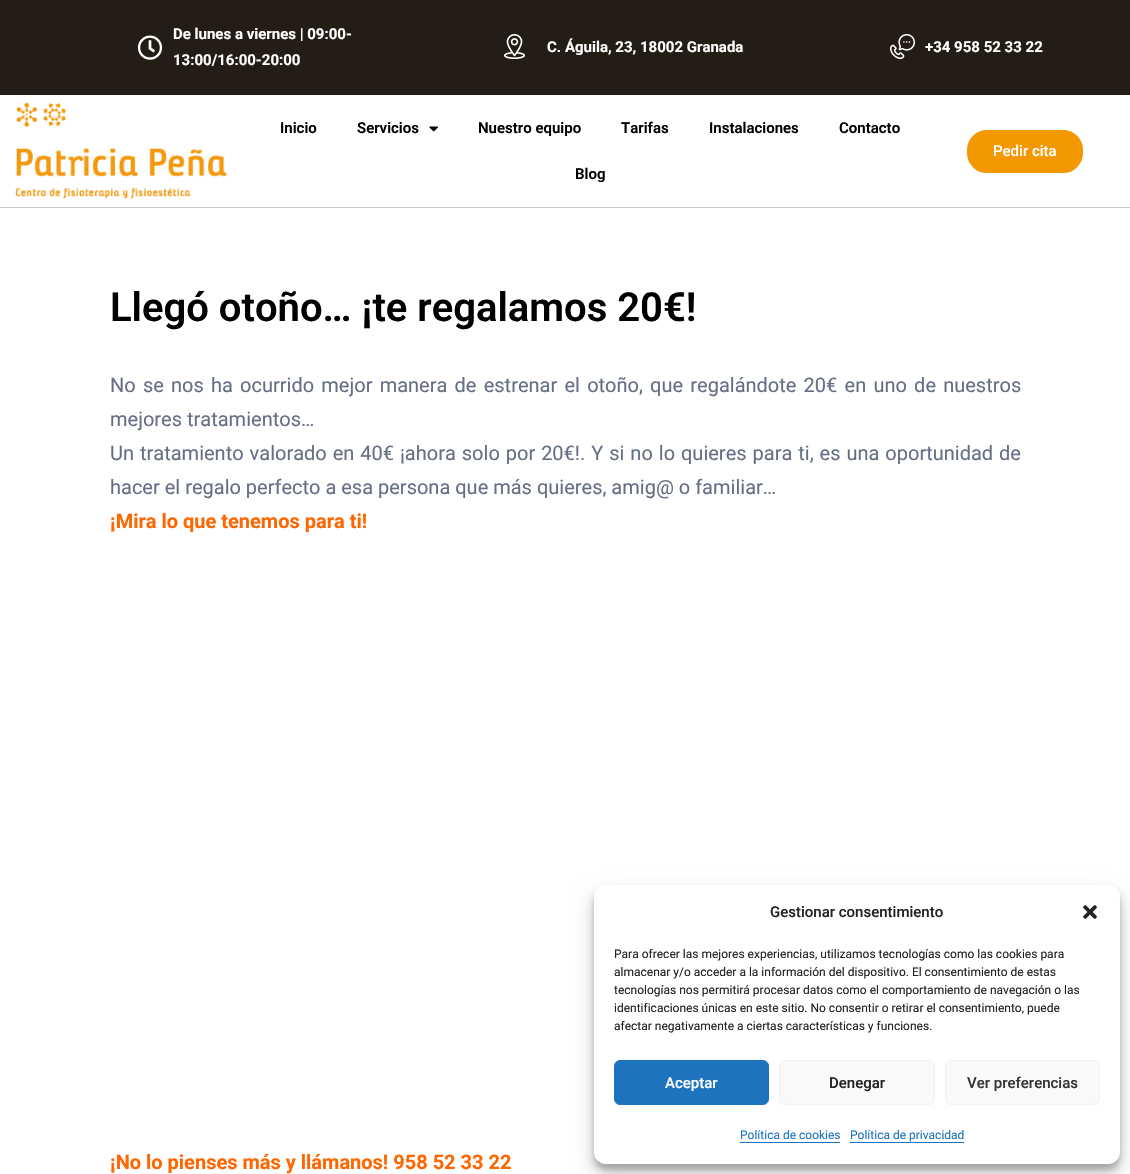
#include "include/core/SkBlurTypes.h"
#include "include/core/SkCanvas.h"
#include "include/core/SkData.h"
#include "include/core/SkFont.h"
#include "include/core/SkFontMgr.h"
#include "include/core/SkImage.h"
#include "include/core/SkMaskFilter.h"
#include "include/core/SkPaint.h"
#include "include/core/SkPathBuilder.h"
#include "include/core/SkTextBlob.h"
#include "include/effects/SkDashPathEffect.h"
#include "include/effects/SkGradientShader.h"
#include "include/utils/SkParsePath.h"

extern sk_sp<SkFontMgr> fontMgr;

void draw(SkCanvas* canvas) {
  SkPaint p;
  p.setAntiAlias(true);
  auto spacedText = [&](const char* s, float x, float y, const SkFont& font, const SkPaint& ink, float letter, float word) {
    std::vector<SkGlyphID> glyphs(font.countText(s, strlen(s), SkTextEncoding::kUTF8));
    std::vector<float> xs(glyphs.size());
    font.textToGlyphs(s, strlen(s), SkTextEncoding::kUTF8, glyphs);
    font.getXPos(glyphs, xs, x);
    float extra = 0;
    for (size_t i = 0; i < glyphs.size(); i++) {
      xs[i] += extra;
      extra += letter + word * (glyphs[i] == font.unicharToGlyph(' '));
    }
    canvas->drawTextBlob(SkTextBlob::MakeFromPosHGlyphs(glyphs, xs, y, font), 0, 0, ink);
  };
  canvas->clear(SK_ColorWHITE);
  p.setColor(SkColorSetRGB(36, 29, 21));
  canvas->drawRect(SkRect::MakeLTRB(0, 0, 1130, 95), p);
  canvas->drawImageRect(SkImages::DeferredFromEncodedData(SkData::MakeFromFileName("images/1.png")), SkRect::MakeLTRB(137, 35, 163, 60), SkSamplingOptions());
  canvas->drawImageRect(SkImages::DeferredFromEncodedData(SkData::MakeFromFileName("images/2.png")), SkRect::MakeLTRB(504, 34, 525, 59), SkSamplingOptions());
  canvas->drawImageRect(SkImages::DeferredFromEncodedData(SkData::MakeFromFileName("images/3.png")), SkRect::MakeLTRB(890, 34, 915, 59), SkSamplingOptions());
  p.setColor(SkColorSetRGB(202, 202, 202));
  canvas->drawRect(SkRect::MakeLTRB(0, 207, 1130, 208), p);
  canvas->drawImageRect(SkImages::DeferredFromEncodedData(SkData::MakeFromFileName("images/4.png")), SkRect::MakeLTRB(15, 103, 227, 199), SkSamplingOptions());
  canvas->drawImageRect(SkImages::DeferredFromEncodedData(SkData::MakeFromFileName("images/5.png")), SkRect::MakeLTRB(429, 126, 438, 132), SkSamplingOptions());
  p.setColor(SkColorSetRGB(243, 152, 1));
  canvas->drawRoundRect(SkRect::MakeLTRB(968, 131, 1082, 172), 19, 19, p);
  p.setStyle(SkPaint::kStroke_Style);
  p.setStrokeWidth(2);
  canvas->drawRoundRect(SkRect::MakeLTRB(968, 131, 1082, 172), 19, 19, p);
  p.setStyle(SkPaint::kFill_Style);
  p.setColor(SkColorSetARGB(59, 0, 0, 0));
  p.setMaskFilter(SkMaskFilter::MakeBlur(kNormal_SkBlurStyle, 3));
  canvas->drawRoundRect(SkRect::MakeLTRB(594, 891, 1120, 1170), 12, 12, p);
  p.setMaskFilter(nullptr);
  p.setColor(SkColorSetARGB(48, 0, 0, 0));
  p.setMaskFilter(SkMaskFilter::MakeBlur(kNormal_SkBlurStyle, 10));
  canvas->drawRoundRect(SkRect::MakeLTRB(594, 895, 1120, 1174), 12, 12, p);
  p.setMaskFilter(nullptr);
  p.setColor(SK_ColorWHITE);
  canvas->drawRoundRect(SkRect::MakeLTRB(594, 885, 1120, 1164), 12, 12, p);
  canvas->drawImageRect(SkImages::DeferredFromEncodedData(SkData::MakeFromFileName("images/6.png")), SkRect::MakeLTRB(1083, 905, 1097, 919), SkSamplingOptions());
  p.setColor(SkColorSetRGB(30, 115, 190));
  canvas->drawRoundRect(SkRect::MakeLTRB(614.5f, 1060.5f, 768.5f, 1104.5f), 5.5f, 5.5f, p);
  p.setStyle(SkPaint::kStroke_Style);
  p.setStrokeWidth(1);
  canvas->drawRoundRect(SkRect::MakeLTRB(614.5f, 1060.5f, 768.5f, 1104.5f), 5.5f, 5.5f, p);
  p.setStyle(SkPaint::kFill_Style);
  p.setColor(SkColorSetRGB(249, 249, 249));
  canvas->drawRoundRect(SkRect::MakeLTRB(779.5f, 1060.5f, 934.5f, 1104.5f), 5.5f, 5.5f, p);
  p.setStyle(SkPaint::kStroke_Style);
  p.setColor(SkColorSetRGB(242, 242, 242));
  canvas->drawRoundRect(SkRect::MakeLTRB(779.5f, 1060.5f, 934.5f, 1104.5f), 5.5f, 5.5f, p);
  p.setStyle(SkPaint::kFill_Style);
  p.setColor(SkColorSetRGB(249, 249, 249));
  canvas->drawRoundRect(SkRect::MakeLTRB(945.5f, 1060.5f, 1099.5f, 1104.5f), 5.5f, 5.5f, p);
  p.setStyle(SkPaint::kStroke_Style);
  p.setColor(SkColorSetRGB(242, 242, 242));
  canvas->drawRoundRect(SkRect::MakeLTRB(945.5f, 1060.5f, 1099.5f, 1104.5f), 5.5f, 5.5f, p);
  p.setStyle(SkPaint::kFill_Style);
  p.setColor(SkColorSetRGB(30, 115, 190));
  canvas->drawRect(SkRect::MakeLTRB(740, 1142, 840, 1143), p);
  canvas->drawRect(SkRect::MakeLTRB(850, 1142, 964, 1143), p);
  SkFont font1(fontMgr->matchFamilyStyle("Roboto", SkFontStyle::Bold()), 15);
  font1.setSubpixel(true);
  p.setColor(SK_ColorWHITE);
  canvas->drawString("De lunes a viernes | 09:00-", 173, 39, font1, p);
  canvas->drawString("13:00/16:00-20:00", 173, 65, font1, p);
  canvas->drawString("C. Águila, 23, 18002 Granada", 547, 52, font1, p);
  canvas->drawString("+34 958 52 33 22", 925, 52, font1, p);
  SkFont font2(fontMgr->matchFamilyStyle("Roboto", SkFontStyle(600, SkFontStyle::kNormal_Width, SkFontStyle::kUpright_Slant)), 15);
  font2.setSubpixel(true);
  p.setColor(SK_ColorBLACK);
  canvas->drawString("Inicio", 280, 133, font2, p);
  canvas->drawString("Servicios", 357, 133, font2, p);
  canvas->drawString("Nuestro equipo", 478, 133, font2, p);
  canvas->drawString("Tarifas", 621, 133, font2, p);
  canvas->drawString("Instalaciones", 709, 133, font2, p);
  canvas->drawString("Contacto", 839, 133, font2, p);
  canvas->drawString("Blog", 575, 179, font2, p);
  SkFont font3(fontMgr->matchFamilyStyle("Roboto", SkFontStyle(500, SkFontStyle::kNormal_Width, SkFontStyle::kUpright_Slant)), 15);
  font3.setSubpixel(true);
  p.setColor(SK_ColorWHITE);
  canvas->drawString("Pedir cita", 993, 156, font3, p);
  SkFont font4(fontMgr->matchFamilyStyle("Roboto", SkFontStyle(600, SkFontStyle::kNormal_Width, SkFontStyle::kUpright_Slant)), 40);
  font4.setSubpixel(true);
  p.setColor(SK_ColorBLACK);
  canvas->drawString("Llegó otoño… ¡te regalamos 20€!", 110, 321, font4, p);
  SkFont font5(fontMgr->matchFamilyStyle("Roboto", SkFontStyle::Normal()), 20);
  font5.setSubpixel(true);
  p.setColor(SkColorSetRGB(102, 110, 134));
  spacedText("No se nos ha ocurrido mejor manera de estrenar el otoño, que regalándote 20€ en uno de nuestros", 110, 392, font5, p, 0, 2.25f);
  canvas->drawString("mejores tratamientos…", 110, 426, font5, p);
  spacedText("Un tratamiento valorado en 40€ ¡ahora solo por 20€!. Y si no lo quieres para ti, es una oportunidad de", 110, 460, font5, p, 0, 1);
  canvas->drawString("hacer el regalo perfecto a esa persona que más quieres, amig@ o familiar…", 110, 494, font5, p);
  SkFont font6(fontMgr->matchFamilyStyle("Roboto", SkFontStyle::Bold()), 20);
  font6.setSubpixel(true);
  p.setColor(SkColorSetRGB(255, 102, 0));
  canvas->drawString("¡Mira lo que tenemos para ti!", 110, 528, font6, p);
  canvas->drawString("¡No lo pienses más y llámanos! 958 52 33 22", 110, 1169, font6, p);
  p.setColor(SkColorSetRGB(34, 34, 34));
  canvas->drawString("Gestionar consentimiento", 770, 917, font3, p);
  SkFont font7(fontMgr->matchFamilyStyle("Roboto", SkFontStyle::Normal()), 12);
  font7.setSubpixel(true);
  canvas->drawString("Para ofrecer las mejores experiencias, utilizamos tecnologías como las cookies para", 614, 958, font7, p);
  canvas->drawString("almacenar y/o acceder a la información del dispositivo. El consentimiento de estas", 614, 976, font7, p);
  canvas->drawString("tecnologías nos permitirá procesar datos como el comportamiento de navegación o las", 614, 994, font7, p);
  canvas->drawString("identificaciones únicas en este sitio. No consentir o retirar el consentimiento, puede", 614, 1012, font7, p);
  canvas->drawString("afectar negativamente a ciertas características y funciones.", 614, 1030, font7, p);
  p.setColor(SK_ColorWHITE);
  canvas->drawString("Aceptar", 665, 1088, font3, p);
  p.setColor(SkColorSetRGB(34, 34, 34));
  canvas->drawString("Denegar", 829, 1088, font3, p);
  p.setColor(SkColorSetRGB(51, 51, 51));
  canvas->drawString("Ver preferencias", 967, 1088, font3, p);
  p.setColor(SkColorSetRGB(30, 115, 190));
  canvas->drawString("Política de cookies", 740, 1139, font7, p);
  canvas->drawString("Política de privacidad", 850, 1139, font7, p);
}
